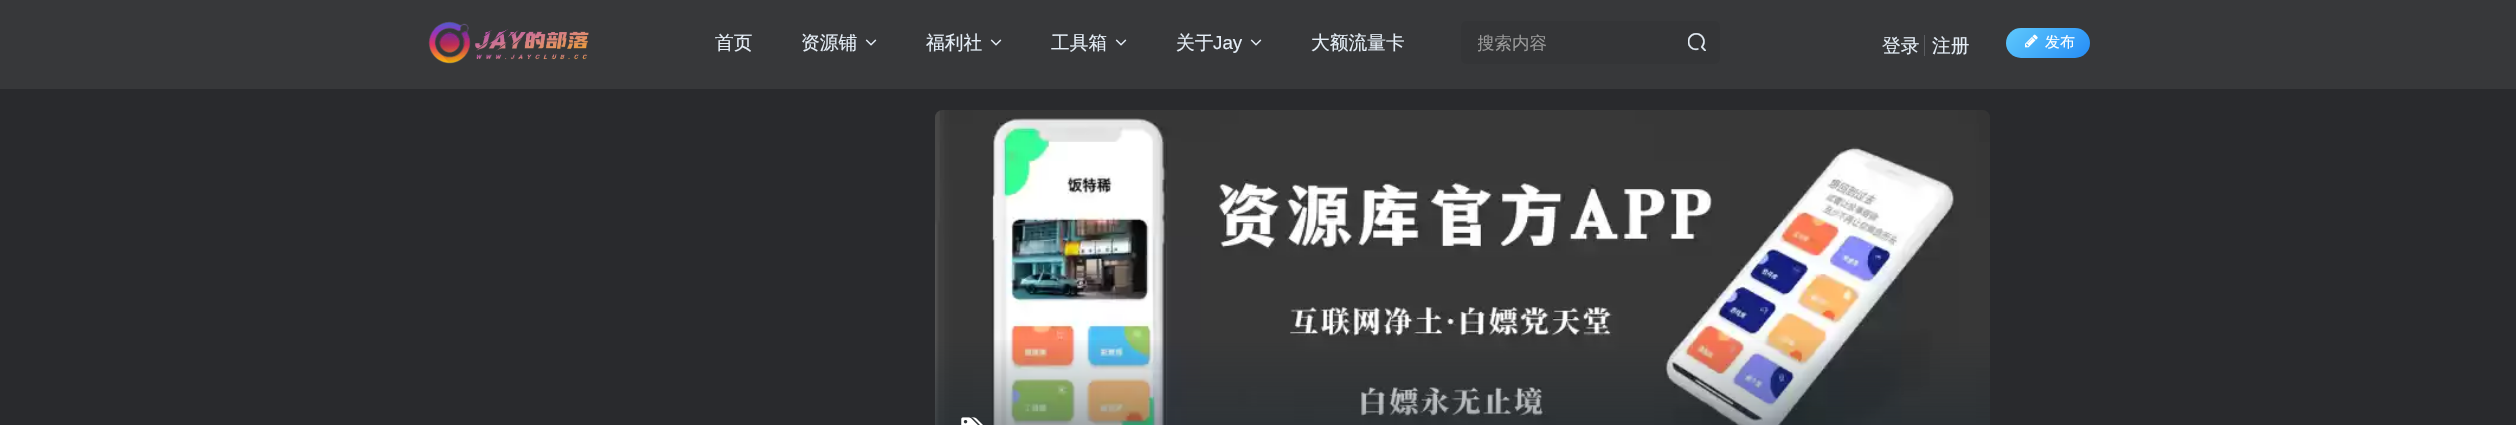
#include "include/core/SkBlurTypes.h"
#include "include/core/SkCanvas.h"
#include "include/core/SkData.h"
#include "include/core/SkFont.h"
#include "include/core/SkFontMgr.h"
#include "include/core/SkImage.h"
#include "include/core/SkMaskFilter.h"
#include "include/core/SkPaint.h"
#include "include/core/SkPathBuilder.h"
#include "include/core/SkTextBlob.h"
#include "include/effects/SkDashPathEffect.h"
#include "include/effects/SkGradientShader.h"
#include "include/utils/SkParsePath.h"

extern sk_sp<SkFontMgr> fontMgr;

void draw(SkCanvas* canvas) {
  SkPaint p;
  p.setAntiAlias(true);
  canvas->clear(SkColorSetRGB(41, 42, 45));
  p.setColor(SkColorSetRGB(55, 56, 58));
  canvas->drawRect(SkRect::MakeLTRB(0, 0, 2516, 89), p);
  canvas->drawImageRect(SkImages::DeferredFromEncodedData(SkData::MakeFromFileName("images/1.png")), SkRect::MakeLTRB(428, 21, 589, 64), SkSamplingOptions());
  canvas->drawImageRect(SkImages::DeferredFromEncodedData(SkData::MakeFromFileName("images/2.png")), SkRect::MakeLTRB(865, 39, 877, 46), SkSamplingOptions());
  canvas->drawImageRect(SkImages::DeferredFromEncodedData(SkData::MakeFromFileName("images/2.png")), SkRect::MakeLTRB(990, 39, 1002, 46), SkSamplingOptions());
  canvas->drawImageRect(SkImages::DeferredFromEncodedData(SkData::MakeFromFileName("images/2.png")), SkRect::MakeLTRB(1115, 39, 1127, 46), SkSamplingOptions());
  canvas->drawImageRect(SkImages::DeferredFromEncodedData(SkData::MakeFromFileName("images/2.png")), SkRect::MakeLTRB(1250, 39, 1262, 46), SkSamplingOptions());
  p.setColor(SkColorSetRGB(52, 53, 55));
  canvas->drawRoundRect(SkRect::MakeLTRB(1461, 21, 1720, 64), 5, 5, p);
  canvas->drawImageRect(SkImages::DeferredFromEncodedData(SkData::MakeFromFileName("images/3.png")), SkRect::MakeLTRB(1688, 33, 1706, 51), SkSamplingOptions());
  p.setColor(SkColorSetRGB(90, 92, 96));
  canvas->drawRect(SkRect::MakeLTRB(1924, 35, 1925, 56), p);
  {
    const SkColor colors[] = {SkColorSetRGB(89, 195, 251), SkColorSetRGB(38, 141, 247)};
    const float stops[] = {0.1f, 1};
    const SkPoint ends[] = {{2020, 14}, {2077, 71}};
    p.setShader(SkGradientShader::MakeLinear(ends, colors, stops, 2, SkTileMode::kClamp));
    p.setAlpha(255);
  }
  canvas->drawRoundRect(SkRect::MakeLTRB(2006, 28, 2090, 58), 15, 15, p);
  canvas->drawImageRect(SkImages::DeferredFromEncodedData(SkData::MakeFromFileName("images/4.png")), SkRect::MakeLTRB(2025, 34, 2038, 48), SkSamplingOptions());
  canvas->drawImageRect(SkImages::DeferredFromEncodedData(SkData::MakeFromFileName("images/5.png")), SkRect::MakeLTRB(935, 110, 1990, 425), SkSamplingOptions());
  {
    const SkColor colors[] = {SkColorSetARGB(102, 29, 41, 49), SkColorSetARGB(0, 29, 41, 49)};
    const float stops[] = {0.14f, 0.38f};
    const SkPoint ends[] = {{1463, 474}, {1463, 110}};
    p.setShader(SkGradientShader::MakeLinear(ends, colors, stops, 2, SkTileMode::kClamp));
    p.setAlpha(255);
  }
  canvas->drawRect(SkRect::MakeLTRB(935, 340, 1990, 425), p);
  canvas->drawImageRect(SkImages::DeferredFromEncodedData(SkData::MakeFromFileName("images/6.png")), SkRect::MakeLTRB(961, 417, 983, 425), SkSamplingOptions());
  SkFont font1(fontMgr->matchFamilyStyle("WenQuanYi Zen Hei", SkFontStyle(500, SkFontStyle::kNormal_Width, SkFontStyle::kUpright_Slant)), 18.75f);
  font1.setSubpixel(true);
  p.setShader(nullptr);
  p.setColor(SkColorSetRGB(229, 238, 247));
  canvas->drawString("首页", 715, 49, font1, p);
  canvas->drawString("资源铺", 801, 49, font1, p);
  canvas->drawString("福利社", 926, 49, font1, p);
  canvas->drawString("工具箱", 1051, 49, font1, p);
  canvas->drawString("关于", 1176, 49, font1, p);
  SkFont font2(fontMgr->matchFamilyStyle("Liberation Sans", SkFontStyle::Normal()), 18.75f);
  font2.setSubpixel(true);
  canvas->drawString("Jay", 1213, 49, font2, p);
  canvas->drawString("大额流量卡", 1311, 49, font1, p);
  canvas->save();
  canvas->clipRect(SkRect::MakeLTRB(1478, 33, 1704, 55));
  SkFont font3(fontMgr->matchFamilyStyle("WenQuanYi Zen Hei", SkFontStyle(500, SkFontStyle::kNormal_Width, SkFontStyle::kUpright_Slant)), 17.5f);
  font3.setSubpixel(true);
  p.setColor(SkColorSetRGB(153, 153, 153));
  canvas->drawString("搜索内容", 1477, 49, font3, p);
  canvas->restore();
  p.setColor(SkColorSetRGB(229, 238, 247));
  canvas->drawString("登录", 1882, 52, font1, p);
  canvas->drawString("注册", 1932, 52, font1, p);
  SkFont font4(fontMgr->matchFamilyStyle("WenQuanYi Zen Hei", SkFontStyle(500, SkFontStyle::kNormal_Width, SkFontStyle::kUpright_Slant)), 15);
  font4.setSubpixel(true);
  p.setColor(SK_ColorWHITE);
  canvas->drawString("发布", 2045, 47, font4, p);
}
